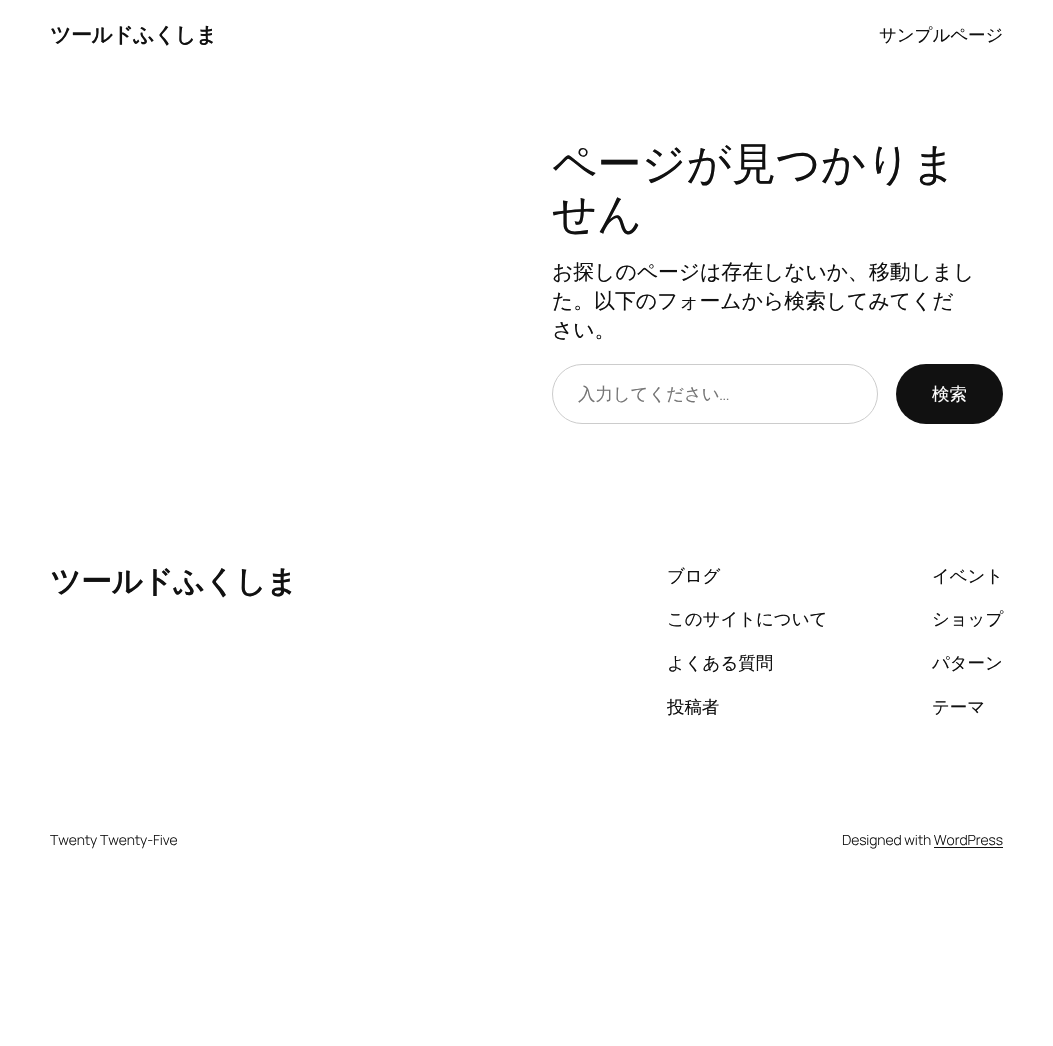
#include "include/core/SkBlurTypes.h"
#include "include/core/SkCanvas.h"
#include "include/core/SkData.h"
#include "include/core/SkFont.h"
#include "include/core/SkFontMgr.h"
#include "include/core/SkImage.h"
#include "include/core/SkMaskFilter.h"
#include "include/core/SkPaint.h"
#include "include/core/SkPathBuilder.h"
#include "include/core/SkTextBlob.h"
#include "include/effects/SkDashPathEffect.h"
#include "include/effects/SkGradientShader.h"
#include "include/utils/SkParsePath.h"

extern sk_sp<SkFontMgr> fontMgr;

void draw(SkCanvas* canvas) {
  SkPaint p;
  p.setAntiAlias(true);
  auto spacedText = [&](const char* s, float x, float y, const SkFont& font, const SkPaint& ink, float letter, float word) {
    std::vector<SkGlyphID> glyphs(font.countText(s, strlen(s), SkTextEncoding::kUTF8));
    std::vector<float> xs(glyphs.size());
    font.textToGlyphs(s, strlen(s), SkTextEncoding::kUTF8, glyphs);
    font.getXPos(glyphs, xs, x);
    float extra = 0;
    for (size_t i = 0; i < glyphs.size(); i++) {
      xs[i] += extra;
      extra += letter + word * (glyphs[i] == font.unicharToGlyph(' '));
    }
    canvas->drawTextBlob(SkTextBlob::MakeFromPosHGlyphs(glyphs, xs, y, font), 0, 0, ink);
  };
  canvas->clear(SK_ColorWHITE);
  p.setStyle(SkPaint::kStroke_Style);
  p.setStrokeWidth(1);
  p.setColor(SkColorSetRGB(204, 204, 204));
  canvas->drawRoundRect(SkRect::MakeLTRB(552.5f, 364.5f, 877.5f, 423.5f), 29.5f, 29.5f, p);
  p.setStyle(SkPaint::kFill_Style);
  p.setColor(SkColorSetRGB(17, 17, 17));
  canvas->drawRoundRect(SkRect::MakeLTRB(896, 364, 1003, 424), 30, 30, p);
  canvas->drawRect(SkRect::MakeLTRB(934, 847, 1003, 848), p);
  SkFont font1(fontMgr->matchFamilyStyle("WenQuanYi Zen Hei", SkFontStyle::Bold()), 20.9f);
  font1.setSubpixel(true);
  spacedText("ツールドふくしま", 50, 42, font1, p, -0.5f, 0);
  SkFont font2(fontMgr->matchFamilyStyle("WenQuanYi Zen Hei", SkFontStyle(500, SkFontStyle::kNormal_Width, SkFontStyle::kUpright_Slant)), 17.5f);
  font2.setSubpixel(true);
  spacedText("サンプルページ", 879, 41, font2, p, -0.1f, 0);
  SkFont font3(fontMgr->matchFamilyStyle("WenQuanYi Zen Hei", SkFontStyle(500, SkFontStyle::kNormal_Width, SkFontStyle::kUpright_Slant)), 44.25f);
  font3.setSubpixel(true);
  spacedText("ページが見つかりま", 552, 179, font3, p, -0.1f, 0);
  spacedText("せん", 552, 229, font3, p, -0.1f, 0);
  SkFont font4(fontMgr->matchFamilyStyle("WenQuanYi Zen Hei", SkFontStyle(500, SkFontStyle::kNormal_Width, SkFontStyle::kUpright_Slant)), 20.9f);
  font4.setSubpixel(true);
  spacedText("お探しのページは存在しないか、移動しまし", 552, 279, font4, p, -0.1f, 0);
  spacedText("た。以下のフォームから検索してみてくだ", 552, 308, font4, p, -0.1f, 0);
  spacedText("さい。", 552, 337, font4, p, -0.1f, 0);
  p.setColor(SkColorSetRGB(117, 117, 117));
  spacedText("入力してください", 578, 400, font2, p, -0.1f, 0);
  SkFont font5(fontMgr->matchFamilyStyle("Manrope", SkFontStyle(300, SkFontStyle::kNormal_Width, SkFontStyle::kUpright_Slant)), 17.5f);
  font5.setSubpixel(true);
  spacedText("…", 719, 400, font5, p, -0.1f, 0);
  p.setColor(SK_ColorWHITE);
  spacedText("検索", 932, 400, font2, p, -0.1f, 0);
  SkFont font6(fontMgr->matchFamilyStyle("WenQuanYi Zen Hei", SkFontStyle::Bold()), 30.75f);
  font6.setSubpixel(true);
  p.setColor(SkColorSetRGB(17, 17, 17));
  spacedText("ツールドふくしま", 50, 592, font6, p, -0.5f, 0);
  spacedText("ブログ", 667, 582, font2, p, -0.1f, 0);
  spacedText("このサイトについて", 667, 625, font2, p, -0.1f, 0);
  spacedText("よくある質問", 667, 669, font2, p, -0.1f, 0);
  spacedText("投稿者", 667, 713, font2, p, -0.1f, 0);
  spacedText("イベント", 932, 582, font2, p, -0.1f, 0);
  spacedText("ショップ", 932, 625, font2, p, -0.1f, 0);
  spacedText("パターン", 932, 669, font2, p, -0.1f, 0);
  spacedText("テーマ", 932, 713, font2, p, -0.1f, 0);
  SkFont font7(fontMgr->matchFamilyStyle("Manrope", SkFontStyle(300, SkFontStyle::kNormal_Width, SkFontStyle::kUpright_Slant)), 14);
  font7.setSubpixel(true);
  spacedText("Twenty Twenty-Five", 50, 845, font7, p, -0.1f, 0);
  spacedText("Designed with WordPress", 842, 845, font7, p, -0.1f, 0);
}
